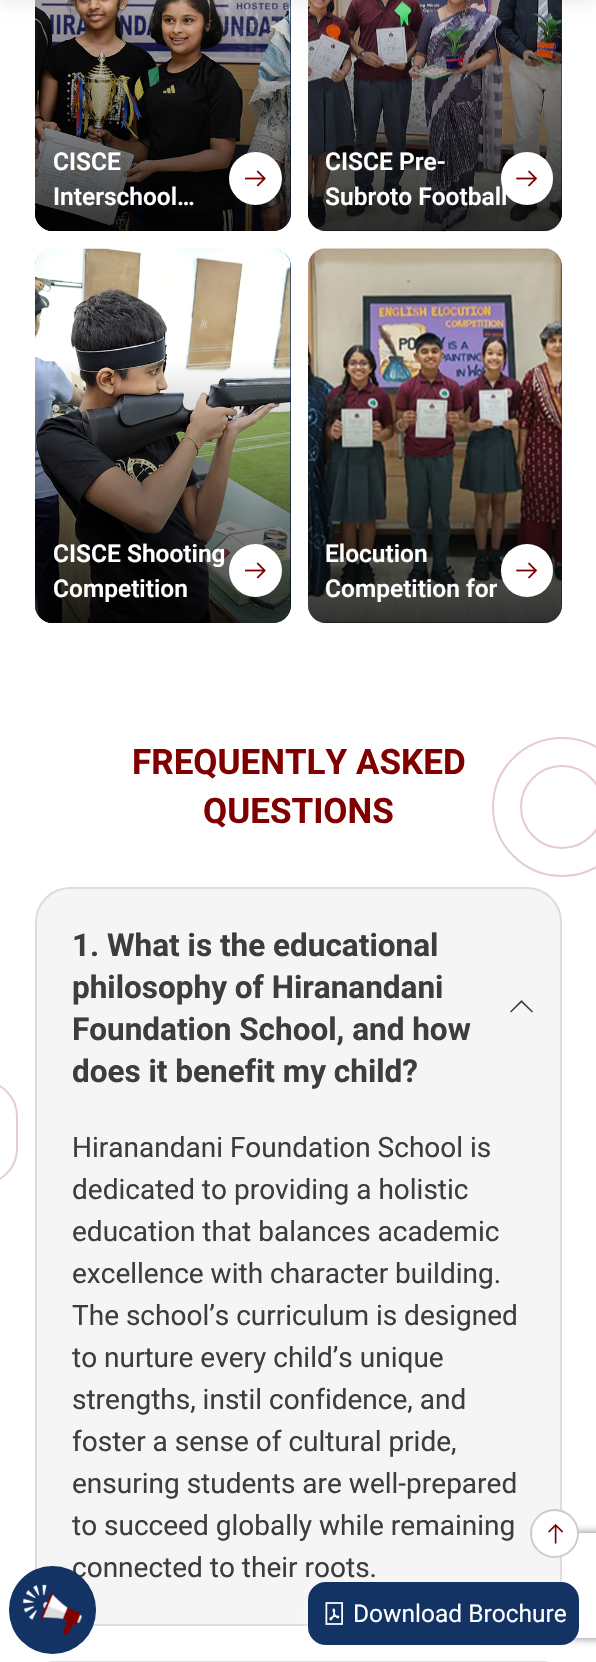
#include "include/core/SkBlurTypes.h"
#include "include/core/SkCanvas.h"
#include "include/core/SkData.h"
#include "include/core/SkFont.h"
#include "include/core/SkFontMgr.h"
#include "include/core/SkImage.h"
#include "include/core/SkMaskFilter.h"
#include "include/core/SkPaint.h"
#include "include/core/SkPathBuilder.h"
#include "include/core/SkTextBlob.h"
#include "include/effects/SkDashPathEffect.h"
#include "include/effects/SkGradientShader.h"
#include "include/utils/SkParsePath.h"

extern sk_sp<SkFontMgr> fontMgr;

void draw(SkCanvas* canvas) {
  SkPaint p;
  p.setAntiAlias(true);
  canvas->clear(SK_ColorWHITE);
  p.setColor(SkColorSetRGB(18, 51, 99));
  canvas->drawRoundRect(SkRect::MakeLTRB(35, -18, 291, 231), 18, 18, p);
  canvas->drawImageRect(SkImages::DeferredFromEncodedData(SkData::MakeFromFileName("images/2.png")), SkRect::MakeLTRB(35, 0, 291, 231), SkSamplingOptions());
  {
    const SkColor colors[] = {SkColorSetARGB(0, 0, 0, 0), SkColorSetARGB(204, 0, 0, 0)};
    const float stops[] = {0, 1};
    const SkPoint ends[] = {{163, -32}, {163, 231}};
    p.setShader(SkGradientShader::MakeLinear(ends, colors, stops, 2, SkTileMode::kClamp));
    p.setAlpha(255);
  }
  canvas->drawPath(SkPathBuilder().moveTo(35, -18).lineTo(291, -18).lineTo(291, 213).cubicTo(291, 223, 283, 231, 273, 231).lineTo(53, 231).cubicTo(43, 231, 35, 223, 35, 213).close().detach(), p);
  p.setShader(nullptr);
  p.setColor(SkColorSetRGB(18, 51, 99));
  canvas->drawRoundRect(SkRect::MakeLTRB(308, -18, 562, 231), 18, 18, p);
  canvas->drawImageRect(SkImages::DeferredFromEncodedData(SkData::MakeFromFileName("images/4.png")), SkRect::MakeLTRB(308, 0, 562, 232), SkSamplingOptions());
  {
    const SkColor colors[] = {SkColorSetARGB(0, 0, 0, 0), SkColorSetARGB(204, 0, 0, 0)};
    const float stops[] = {0, 1};
    const SkPoint ends[] = {{435, -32}, {435, 231}};
    p.setShader(SkGradientShader::MakeLinear(ends, colors, stops, 2, SkTileMode::kClamp));
    p.setAlpha(255);
  }
  canvas->drawPath(SkPathBuilder().moveTo(308, -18).lineTo(562, -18).lineTo(562, 213).cubicTo(562, 223, 554, 231, 544, 231).lineTo(326, 231).cubicTo(316, 231, 308, 223, 308, 213).close().detach(), p);
  p.setShader(nullptr);
  p.setColor(SkColorSetARGB(26, 0, 0, 0));
  p.setMaskFilter(SkMaskFilter::MakeBlur(kNormal_SkBlurStyle, 9));
  canvas->drawRect(SkRect::MakeLTRB(0, -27, 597, 0), p);
  p.setMaskFilter(nullptr);
  p.setColor(SkColorSetARGB(191, 255, 255, 255));
  p.setMaskFilter(SkMaskFilter::MakeBlur(kNormal_SkBlurStyle, 35));
  canvas->drawRect(SkRect::MakeLTRB(26, -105, 306, -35), p);
  p.setMaskFilter(nullptr);
  p.setColor(SK_ColorWHITE);
  canvas->drawCircle(255.5f, 178.5f, 26.5f, p);
  canvas->drawImageRect(SkImages::DeferredFromEncodedData(SkData::MakeFromFileName("images/3.png")), SkRect::MakeLTRB(245, 170, 266, 187), SkSamplingOptions());
  canvas->drawRoundRect(SkRect::MakeLTRB(501, 152, 553, 205), 26, 26, p);
  canvas->drawImageRect(SkImages::DeferredFromEncodedData(SkData::MakeFromFileName("images/5.png")), SkRect::MakeLTRB(516, 170, 538, 187), SkSamplingOptions());
  p.setColor(SkColorSetRGB(18, 51, 99));
  canvas->drawRoundRect(SkRect::MakeLTRB(35, 249, 291, 623), 18, 18, p);
  canvas->drawImageRect(SkImages::DeferredFromEncodedData(SkData::MakeFromFileName("images/6.png")), SkRect::MakeLTRB(35, 248, 291, 623), SkSamplingOptions());
  {
    const SkColor colors[] = {SkColorSetARGB(0, 0, 0, 0), SkColorSetARGB(204, 0, 0, 0)};
    const float stops[] = {0, 1};
    const SkPoint ends[] = {{163, 361}, {163, 623}};
    p.setShader(SkGradientShader::MakeLinear(ends, colors, stops, 2, SkTileMode::kClamp));
    p.setAlpha(255);
  }
  canvas->drawPath(SkPathBuilder().moveTo(35, 361).lineTo(291, 361).lineTo(291, 605).cubicTo(291, 615, 283, 623, 273, 623).lineTo(53, 623).cubicTo(43, 623, 35, 615, 35, 605).close().detach(), p);
  p.setShader(nullptr);
  p.setColor(SK_ColorWHITE);
  canvas->drawCircle(255.5f, 570.5f, 26.5f, p);
  canvas->drawImageRect(SkImages::DeferredFromEncodedData(SkData::MakeFromFileName("images/3.png")), SkRect::MakeLTRB(245, 562, 266, 579), SkSamplingOptions());
  p.setColor(SkColorSetRGB(18, 51, 99));
  canvas->drawRoundRect(SkRect::MakeLTRB(308, 249, 562, 623), 18, 18, p);
  canvas->drawImageRect(SkImages::DeferredFromEncodedData(SkData::MakeFromFileName("images/7.png")), SkRect::MakeLTRB(308, 248, 562, 624), SkSamplingOptions());
  {
    const SkColor colors[] = {SkColorSetARGB(0, 0, 0, 0), SkColorSetARGB(204, 0, 0, 0)};
    const float stops[] = {0, 1};
    const SkPoint ends[] = {{435, 361}, {435, 623}};
    p.setShader(SkGradientShader::MakeLinear(ends, colors, stops, 2, SkTileMode::kClamp));
    p.setAlpha(255);
  }
  canvas->drawPath(SkPathBuilder().moveTo(308, 361).lineTo(562, 361).lineTo(562, 605).cubicTo(562, 615, 554, 623, 544, 623).lineTo(326, 623).cubicTo(316, 623, 308, 615, 308, 605).close().detach(), p);
  p.setShader(nullptr);
  p.setColor(SK_ColorWHITE);
  canvas->drawRoundRect(SkRect::MakeLTRB(501, 544, 553, 597), 26, 26, p);
  canvas->drawImageRect(SkImages::DeferredFromEncodedData(SkData::MakeFromFileName("images/5.png")), SkRect::MakeLTRB(516, 562, 538, 579), SkSamplingOptions());
  p.setStyle(SkPaint::kStroke_Style);
  p.setStrokeWidth(2);
  p.setColor(SkColorSetRGB(230, 204, 204));
  canvas->drawCircle(562, 807, 69, p);
  canvas->drawCircle(562, 807, 41, p);
  canvas->drawRoundRect(SkRect::MakeLTRB(-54, 1081, 17, 1184), 51.5f, 51.5f, p);
  canvas->save();
  canvas->clipPath(SkPathBuilder(SkPathFillType::kEvenOdd).moveTo(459, 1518).lineTo(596, 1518).lineTo(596, 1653).lineTo(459, 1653).close().moveTo(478, 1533).lineTo(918, 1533).cubicTo(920, 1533, 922, 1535, 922, 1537).lineTo(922, 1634).cubicTo(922, 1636, 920, 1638, 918, 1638).lineTo(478, 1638).cubicTo(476, 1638, 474, 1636, 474, 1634).lineTo(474, 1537).cubicTo(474, 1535, 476, 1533, 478, 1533).close().detach(), true);
  p.setStyle(SkPaint::kFill_Style);
  p.setColor(SkColorSetRGB(128, 128, 128));
  p.setMaskFilter(SkMaskFilter::MakeBlur(kNormal_SkBlurStyle, 4.5f));
  canvas->drawRoundRect(SkRect::MakeLTRB(474, 1533, 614, 1638), 4, 4, p);
  p.setMaskFilter(nullptr);
  canvas->restore();
  p.setColor(SkColorSetRGB(245, 245, 245));
  canvas->drawRoundRect(SkRect::MakeLTRB(36, 888, 561, 1625), 34, 34, p);
  p.setStyle(SkPaint::kStroke_Style);
  p.setColor(SkColorSetRGB(221, 221, 221));
  canvas->drawRoundRect(SkRect::MakeLTRB(36, 888, 561, 1625), 34, 34, p);
  p.setStyle(SkPaint::kFill_Style);
  p.setColor(SkColorSetRGB(61, 61, 61));
  canvas->drawPath(SkPathBuilder().moveTo(521.5f, 1000).lineTo(510, 1011.5f).lineTo(511, 1012.5f).lineTo(521.5f, 1002.5f).lineTo(532, 1012.5f).lineTo(533, 1011.5f).close().detach(), p);
  p.setStyle(SkPaint::kStroke_Style);
  p.setColor(SkColorSetRGB(221, 221, 221));
  canvas->drawRoundRect(SkRect::MakeLTRB(36, 1662, 561, 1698), 34, 34, p);
  p.setStyle(SkPaint::kFill_Style);
  p.setColor(SK_ColorWHITE);
  canvas->drawCircle(554.5f, 1533.5f, 23.5f, p);
  p.setStyle(SkPaint::kStroke_Style);
  p.setColor(SkColorSetRGB(204, 204, 204));
  canvas->drawCircle(554.5f, 1533.5f, 23.5f, p);
  canvas->drawImageRect(SkImages::DeferredFromEncodedData(SkData::MakeFromFileName("images/8.png")), SkRect::MakeLTRB(548, 1524, 564, 1544), SkSamplingOptions());
  p.setStyle(SkPaint::kFill_Style);
  p.setColor(SkColorSetARGB(128, 255, 255, 255));
  p.setMaskFilter(SkMaskFilter::MakeBlur(kNormal_SkBlurStyle, 4.5f));
  canvas->drawRoundRect(SkRect::MakeLTRB(308, 1582, 579, 1645), 18, 18, p);
  p.setMaskFilter(nullptr);
  p.setColor(SkColorSetRGB(18, 51, 99));
  canvas->drawRoundRect(SkRect::MakeLTRB(309, 1583, 578, 1644), 17, 17, p);
  p.setStyle(SkPaint::kStroke_Style);
  canvas->drawRoundRect(SkRect::MakeLTRB(309, 1583, 578, 1644), 17, 17, p);
  canvas->drawImageRect(SkImages::DeferredFromEncodedData(SkData::MakeFromFileName("images/9.png")), SkRect::MakeLTRB(325, 1602, 343, 1625), SkSamplingOptions());
  SkFont font1(fontMgr->matchFamilyStyle("Roboto", SkFontStyle(600, SkFontStyle::kNormal_Width, SkFontStyle::kUpright_Slant)), 24.5f);
  font1.setSubpixel(true);
  p.setStyle(SkPaint::kFill_Style);
  p.setColor(SK_ColorWHITE);
  canvas->drawString("CISCE", 53, 170, font1, p);
  canvas->drawString("Interschool…", 53, 205, font1, p);
  canvas->save();
  canvas->clipRect(SkRect::MakeLTRB(326, 144, 544, 214));
  canvas->drawString("CISCE Pre-", 325, 170, font1, p);
  canvas->drawString("Subroto Football", 325, 205, font1, p);
  canvas->restore();
  canvas->drawString("CISCE Shooting", 53, 562, font1, p);
  canvas->drawString("Competition", 53, 597, font1, p);
  canvas->drawString("Elocution", 325, 562, font1, p);
  canvas->save();
  canvas->clipRect(SkRect::MakeLTRB(326, 536, 544, 606));
  canvas->drawString("Competition for", 325, 597, font1, p);
  canvas->restore();
  SkFont font2(fontMgr->matchFamilyStyle("Roboto", SkFontStyle::Bold()), 35);
  font2.setSubpixel(true);
  p.setColor(SkColorSetRGB(128, 0, 0));
  canvas->drawString("FREQUENTLY ASKED", 132, 774, font2, p);
  canvas->drawString("QUESTIONS", 203, 823, font2, p);
  SkFont font3(fontMgr->matchFamilyStyle("Roboto", SkFontStyle::Bold()), 31.5f);
  font3.setSubpixel(true);
  p.setColor(SkColorSetRGB(61, 61, 61));
  canvas->drawString("1. What is the educational", 72, 956, font3, p);
  canvas->drawString("philosophy of Hiranandani", 72, 998, font3, p);
  canvas->drawString("Foundation School, and how", 72, 1040, font3, p);
  canvas->drawString("does it benefit my child?", 72, 1082, font3, p);
  SkFont font4(fontMgr->matchFamilyStyle("Roboto", SkFontStyle::Normal()), 28);
  font4.setSubpixel(true);
  canvas->drawString("Hiranandani Foundation School is", 72, 1157, font4, p);
  canvas->drawString("dedicated to providing a holistic", 72, 1199, font4, p);
  canvas->drawString("education that balances academic", 72, 1241, font4, p);
  canvas->drawString("excellence with character building.", 72, 1283, font4, p);
  canvas->drawString("The school’s curriculum is designed", 72, 1325, font4, p);
  canvas->drawString("to nurture every child’s unique", 72, 1367, font4, p);
  canvas->drawString("strengths, instil confidence, and", 72, 1409, font4, p);
  canvas->drawString("foster a sense of cultural pride,", 72, 1451, font4, p);
  canvas->drawString("ensuring students are well-prepared", 72, 1493, font4, p);
  canvas->drawString("to succeed globally while remaining", 72, 1535, font4, p);
  canvas->drawString("connected to their roots.", 72, 1577, font4, p);
  p.setColor(SkColorSetRGB(18, 51, 99));
  canvas->drawRoundRect(SkRect::MakeLTRB(9, 1566, 96, 1654), 43.5f, 43.5f, p);
  canvas->drawImageRect(SkImages::DeferredFromEncodedData(SkData::MakeFromFileName("images/1.png")), SkRect::MakeLTRB(23, 1584, 83, 1636), SkSamplingOptions());
  SkFont font5(fontMgr->matchFamilyStyle("Roboto", SkFontStyle::Normal()), 24.5f);
  font5.setSubpixel(true);
  p.setColor(SK_ColorWHITE);
  canvas->drawString("Download Brochure", 353, 1622, font5, p);
}
